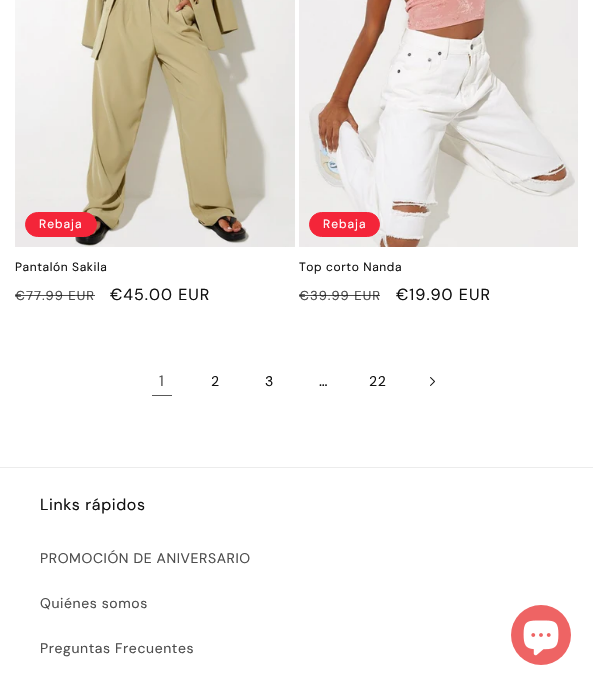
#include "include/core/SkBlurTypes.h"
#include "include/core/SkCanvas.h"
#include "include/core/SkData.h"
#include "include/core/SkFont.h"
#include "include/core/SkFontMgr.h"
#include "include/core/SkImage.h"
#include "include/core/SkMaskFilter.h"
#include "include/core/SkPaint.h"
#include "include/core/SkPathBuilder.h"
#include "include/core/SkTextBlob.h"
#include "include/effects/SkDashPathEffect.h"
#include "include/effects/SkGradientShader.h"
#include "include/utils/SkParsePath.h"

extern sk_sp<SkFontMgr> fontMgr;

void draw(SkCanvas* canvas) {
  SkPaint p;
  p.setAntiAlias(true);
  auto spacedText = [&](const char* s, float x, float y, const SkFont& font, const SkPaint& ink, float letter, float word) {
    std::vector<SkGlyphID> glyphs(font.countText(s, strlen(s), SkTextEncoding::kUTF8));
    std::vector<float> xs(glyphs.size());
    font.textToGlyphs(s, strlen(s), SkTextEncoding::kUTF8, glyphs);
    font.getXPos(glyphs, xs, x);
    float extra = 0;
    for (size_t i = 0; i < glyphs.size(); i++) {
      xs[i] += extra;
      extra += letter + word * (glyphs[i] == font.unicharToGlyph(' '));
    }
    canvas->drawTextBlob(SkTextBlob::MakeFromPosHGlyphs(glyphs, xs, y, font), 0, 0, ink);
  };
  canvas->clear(SK_ColorWHITE);
  canvas->drawImageRect(SkImages::DeferredFromEncodedData(SkData::MakeFromFileName("images/1.png")), SkRect::MakeLTRB(15, 0, 295, 247), SkSamplingOptions());
  p.setColor(SkColorSetRGB(244, 37, 57));
  canvas->drawRoundRect(SkRect::MakeLTRB(25.5f, 212.5f, 96.5f, 236.5f), 12, 12, p);
  p.setStyle(SkPaint::kStroke_Style);
  p.setStrokeWidth(1);
  canvas->drawRoundRect(SkRect::MakeLTRB(25.5f, 212.5f, 96.5f, 236.5f), 12, 12, p);
  canvas->drawImageRect(SkImages::DeferredFromEncodedData(SkData::MakeFromFileName("images/2.png")), SkRect::MakeLTRB(299, 0, 578, 247), SkSamplingOptions());
  p.setStyle(SkPaint::kFill_Style);
  canvas->drawRoundRect(SkRect::MakeLTRB(309.5f, 212.5f, 379.5f, 236.5f), 12, 12, p);
  p.setStyle(SkPaint::kStroke_Style);
  canvas->drawRoundRect(SkRect::MakeLTRB(309.5f, 212.5f, 379.5f, 236.5f), 12, 12, p);
  p.setStyle(SkPaint::kFill_Style);
  p.setColor(SkColorSetRGB(89, 89, 89));
  canvas->drawRect(SkRect::MakeLTRB(152, 395, 172, 396), p);
  canvas->drawImageRect(SkImages::DeferredFromEncodedData(SkData::MakeFromFileName("images/3.png")), SkRect::MakeLTRB(430, 377, 435, 386), SkSamplingOptions());
  p.setColor(SkColorSetRGB(236, 236, 236));
  canvas->drawRect(SkRect::MakeLTRB(0, 467, 593, 468), p);
  p.setColor(SkColorSetRGB(238, 100, 100));
  canvas->drawCircle(541, 635, 30, p);
  canvas->drawImageRect(SkImages::DeferredFromEncodedData(SkData::MakeFromFileName("images/4.png")), SkRect::MakeLTRB(523, 620, 559, 656), SkSamplingOptions());
  SkFont font1(fontMgr->matchFamilyStyle("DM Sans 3", SkFontStyle::Normal()), 12);
  font1.setSubpixel(true);
  p.setColor(SK_ColorWHITE);
  spacedText("Rebaja", 39, 228, font1, p, 1, 0);
  p.setColor(SkColorSetRGB(18, 18, 18));
  spacedText("Pantalón Sakila", 15, 271, font1, p, 0.6f, 0);
  SkFont font2(fontMgr->matchFamilyStyle("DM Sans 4", SkFontStyle::Normal()), 13);
  font2.setSubpixel(true);
  p.setColor(SkColorSetRGB(77, 77, 77));
  spacedText("€77.99 EUR", 15, 300, font2, p, 1, 0);
  p.setColor(SkColorSetARGB(191, 18, 18, 18));
  canvas->drawRect(SkRect::MakeLTRB(15, 295, 95, 296), p);
  SkFont font3(fontMgr->matchFamilyStyle("DM Sans", SkFontStyle::Normal()), 16);
  font3.setSubpixel(true);
  p.setColor(SkColorSetRGB(18, 18, 18));
  spacedText("€45.00 EUR", 110, 300, font3, p, 1, 0);
  p.setColor(SK_ColorWHITE);
  spacedText("Rebaja", 323, 228, font1, p, 1, 0);
  p.setColor(SkColorSetRGB(18, 18, 18));
  spacedText("Top corto Nanda", 299, 271, font1, p, 0.6f, 0);
  p.setColor(SkColorSetRGB(77, 77, 77));
  spacedText("€39.99 EUR", 299, 300, font2, p, 1, 0);
  p.setColor(SkColorSetARGB(191, 18, 18, 18));
  canvas->drawRect(SkRect::MakeLTRB(299, 295, 380, 296), p);
  p.setColor(SkColorSetRGB(18, 18, 18));
  spacedText("€19.90 EUR", 396, 300, font3, p, 1, 0);
  SkFont font4(fontMgr->matchFamilyStyle("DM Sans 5", SkFontStyle::Normal()), 15);
  font4.setSubpixel(true);
  p.setColor(SkColorSetRGB(89, 89, 89));
  spacedText("1", 159, 386, font4, p, 0.6f, 0);
  SkFont font5(fontMgr->matchFamilyStyle("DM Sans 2", SkFontStyle::Normal()), 14);
  font5.setSubpixel(true);
  p.setColor(SkColorSetRGB(18, 18, 18));
  spacedText("2", 211, 386, font5, p, 0.6f, 0);
  spacedText("3", 265, 386, font5, p, 0.6f, 0);
  spacedText("…", 319, 386, font4, p, 0.6f, 0);
  spacedText("22", 369, 386, font5, p, 0.6f, 0);
  spacedText("Links rápidos", 40, 510, font3, p, 0.6f, 0);
  p.setColor(SkColorSetRGB(77, 77, 77));
  spacedText("PROMOCIÓN DE ANIVERSARIO", 40, 563, font5, p, 0.6f, 0);
  spacedText("Quiénes somos", 40, 608, font5, p, 0.6f, 0);
  spacedText("Preguntas Frecuentes", 40, 653, font5, p, 0.6f, 0);
}
